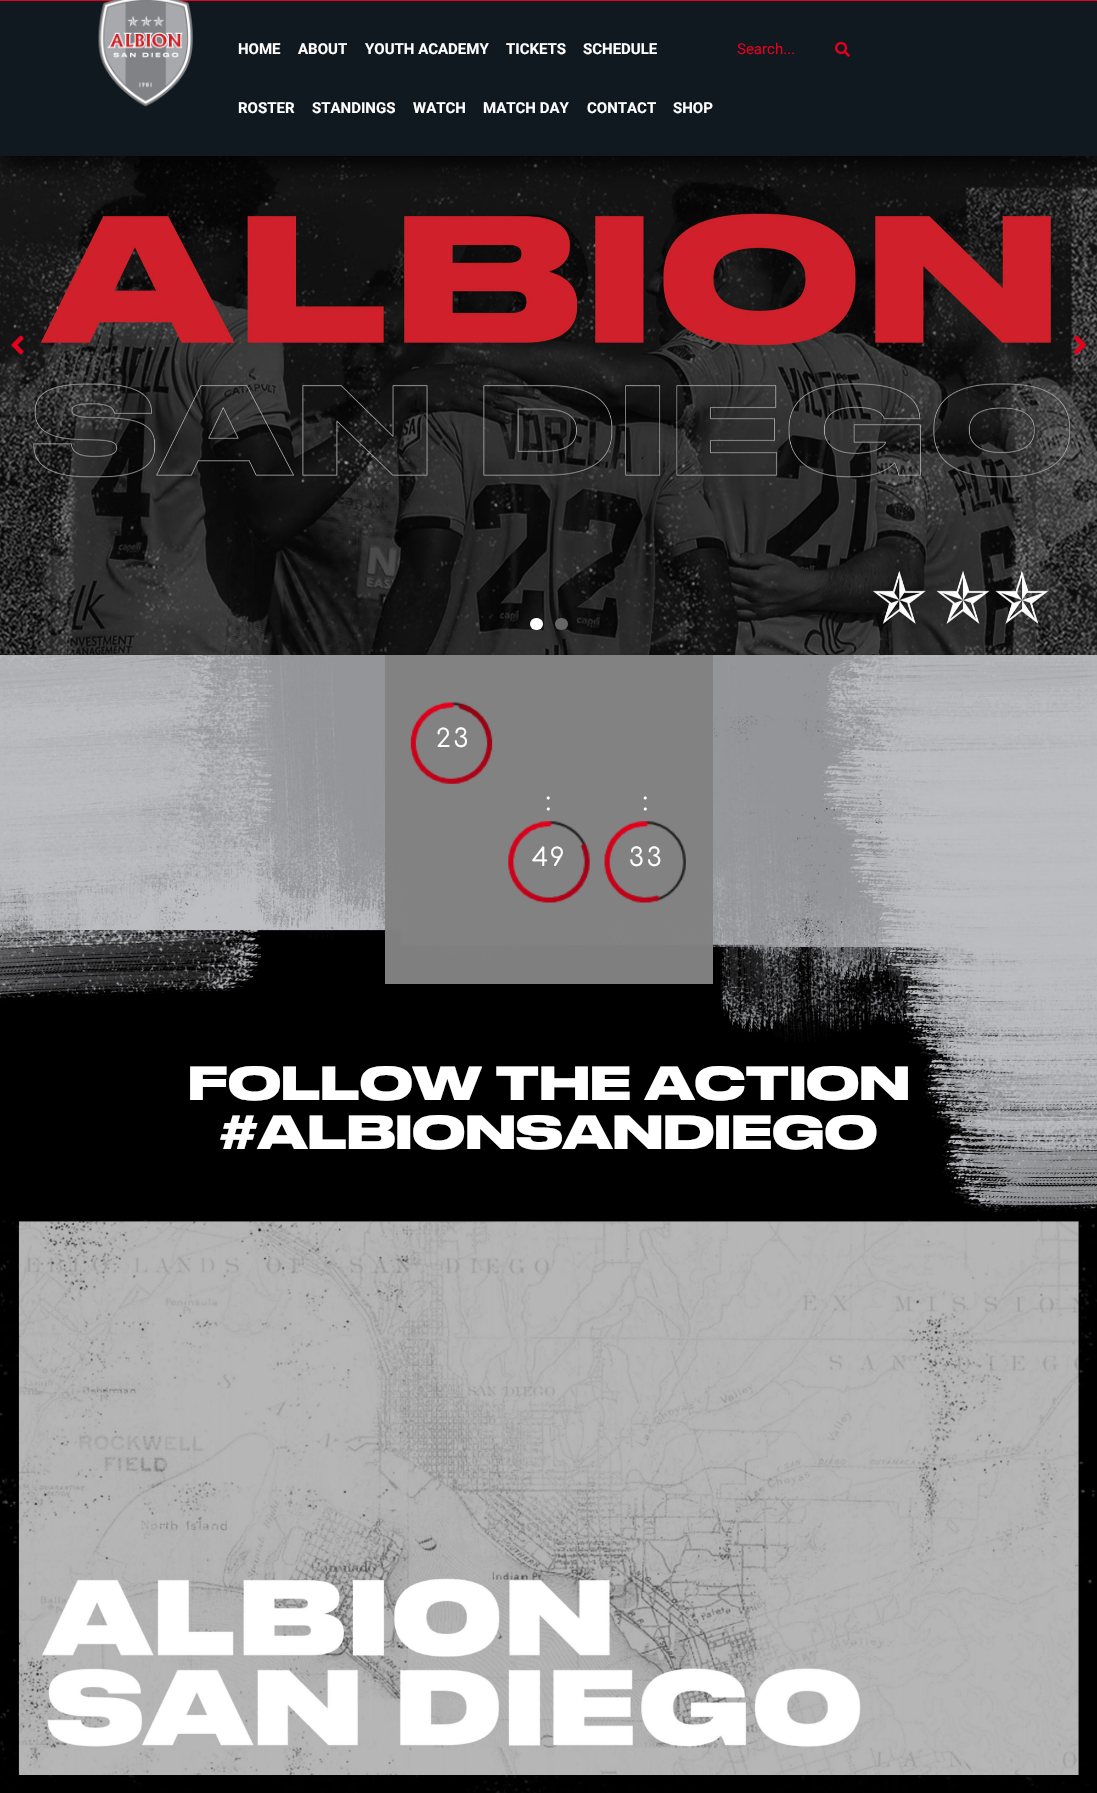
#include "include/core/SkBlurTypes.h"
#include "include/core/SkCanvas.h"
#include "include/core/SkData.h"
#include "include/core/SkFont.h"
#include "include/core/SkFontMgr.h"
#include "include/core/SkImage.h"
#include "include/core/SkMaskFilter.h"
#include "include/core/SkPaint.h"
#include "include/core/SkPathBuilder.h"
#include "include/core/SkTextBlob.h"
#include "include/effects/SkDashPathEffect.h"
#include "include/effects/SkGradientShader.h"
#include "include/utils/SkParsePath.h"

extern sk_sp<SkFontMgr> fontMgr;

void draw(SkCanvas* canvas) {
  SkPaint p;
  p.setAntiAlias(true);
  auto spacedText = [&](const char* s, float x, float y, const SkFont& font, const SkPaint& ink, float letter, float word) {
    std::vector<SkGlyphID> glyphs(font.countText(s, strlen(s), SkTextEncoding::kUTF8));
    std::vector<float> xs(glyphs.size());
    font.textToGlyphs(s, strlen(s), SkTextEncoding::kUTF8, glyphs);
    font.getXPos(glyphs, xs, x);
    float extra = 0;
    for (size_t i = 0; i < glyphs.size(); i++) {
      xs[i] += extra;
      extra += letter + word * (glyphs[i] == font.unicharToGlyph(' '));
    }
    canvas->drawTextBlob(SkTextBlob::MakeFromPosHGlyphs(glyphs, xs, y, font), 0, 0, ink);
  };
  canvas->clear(SK_ColorWHITE);
  canvas->drawImageRect(SkImages::DeferredFromEncodedData(SkData::MakeFromFileName("images/1.png")), SkRect::MakeLTRB(0, 654, 1097, 1793), SkSamplingOptions());
  canvas->drawImageRect(SkImages::DeferredFromEncodedData(SkData::MakeFromFileName("images/4.png")), SkRect::MakeLTRB(0, 156, 1097, 655), SkSamplingOptions());
  p.setColor(SK_ColorBLACK);
  p.setMaskFilter(SkMaskFilter::MakeBlur(kNormal_SkBlurStyle, 12.5f));
  canvas->drawRect(SkRect::MakeLTRB(0, 9, 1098, 165), p);
  p.setMaskFilter(nullptr);
  p.setColor(SkColorSetRGB(16, 25, 32));
  canvas->drawRect(SkRect::MakeLTRB(0, 1, 1097, 156), p);
  p.setColor(SkColorSetRGB(227, 0, 28));
  canvas->drawRect(SkRect::MakeLTRB(0, 0, 1097, 1), p);
  canvas->drawImageRect(SkImages::DeferredFromEncodedData(SkData::MakeFromFileName("images/2.png")), SkRect::MakeLTRB(98, 0, 193, 107), SkSamplingOptions());
  canvas->drawImageRect(SkImages::DeferredFromEncodedData(SkData::MakeFromFileName("images/3.png")), SkRect::MakeLTRB(835, 41, 850, 57), SkSamplingOptions());
  canvas->drawImageRect(SkImages::DeferredFromEncodedData(SkData::MakeFromFileName("images/5.png")), SkRect::MakeLTRB(11, 335, 24, 355), SkSamplingOptions());
  canvas->drawImageRect(SkImages::DeferredFromEncodedData(SkData::MakeFromFileName("images/6.png")), SkRect::MakeLTRB(1074, 335, 1086, 355), SkSamplingOptions());
  p.setColor(SK_ColorWHITE);
  canvas->drawRoundRect(SkRect::MakeLTRB(530, 618, 543, 630), 6, 6, p);
  p.setColor(SkColorSetRGB(102, 102, 102));
  canvas->drawRoundRect(SkRect::MakeLTRB(555, 618, 568, 630), 6, 6, p);
  canvas->drawImageRect(SkImages::DeferredFromEncodedData(SkData::MakeFromFileName("images/7.png")), SkRect::MakeLTRB(0, 655, 1097, 1220), SkSamplingOptions());
  p.setColor(SkColorSetARGB(250, 130, 130, 130));
  canvas->drawRect(SkRect::MakeLTRB(385, 655, 713, 984), p);
  canvas->drawImageRect(SkImages::DeferredFromEncodedData(SkData::MakeFromFileName("images/8.png")), SkRect::MakeLTRB(410, 702, 493, 784), SkSamplingOptions());
  canvas->drawImageRect(SkImages::DeferredFromEncodedData(SkData::MakeFromFileName("images/9.png")), SkRect::MakeLTRB(508, 821, 590, 903), SkSamplingOptions());
  canvas->drawImageRect(SkImages::DeferredFromEncodedData(SkData::MakeFromFileName("images/10.png")), SkRect::MakeLTRB(604, 821, 686, 903), SkSamplingOptions());
  canvas->drawImageRect(SkImages::DeferredFromEncodedData(SkData::MakeFromFileName("images/11.png")), SkRect::MakeLTRB(18, 1221, 1079, 1775), SkSamplingOptions());
  p.setColor(SkColorSetARGB(179, 0, 0, 0));
  canvas->drawRect(SkRect::MakeLTRB(5, 1775, 1093, 1793), p);
  SkFont font1(fontMgr->matchFamilyStyle("Roboto", SkFontStyle::Bold()), 15);
  font1.setSubpixel(true);
  p.setColor(SK_ColorWHITE);
  canvas->drawString("HOME", 238, 54, font1, p);
  canvas->drawString("ABOUT", 298, 54, font1, p);
  canvas->drawString("YOUTH ACADEMY", 365, 54, font1, p);
  canvas->drawString("TICKETS", 506, 54, font1, p);
  canvas->drawString("SCHEDULE", 583, 54, font1, p);
  SkFont font2(fontMgr->matchFamilyStyle("Roboto", SkFontStyle::Normal()), 15);
  font2.setSubpixel(true);
  p.setColor(SkColorSetRGB(227, 0, 28));
  canvas->drawString("Search...", 737, 54, font2, p);
  p.setColor(SK_ColorWHITE);
  canvas->drawString("ROSTER", 238, 113, font1, p);
  canvas->drawString("STANDINGS", 312, 113, font1, p);
  canvas->drawString("WATCH", 413, 113, font1, p);
  canvas->drawString("MATCH DAY", 483, 113, font1, p);
  canvas->drawString("CONTACT", 587, 113, font1, p);
  canvas->drawString("SHOP", 673, 113, font1, p);
  SkFont font3(fontMgr->matchFamilyStyle("Comfortaa", SkFontStyle::Normal()), 25);
  font3.setSubpixel(true);
  spacedText("23", 436, 747, font3, p, 3, 0);
  canvas->drawString(":", 546, 810, font3, p);
  spacedText("4", 532, 866, font3, p, 3, 0);
  spacedText("9", 550, 866, font3, p, 3, 0);
  canvas->drawString(":", 643, 810, font3, p);
  spacedText("33", 629, 866, font3, p, 3, 0);
  SkFont font4(fontMgr->matchFamilyStyle("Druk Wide", SkFontStyle::Bold()), 45);
  font4.setSubpixel(true);
  canvas->drawString("FOLLOW THE ACTION", 188, 1100, font4, p);
  canvas->drawString("#ALBIONSANDIEGO", 220, 1149, font4, p);
}
